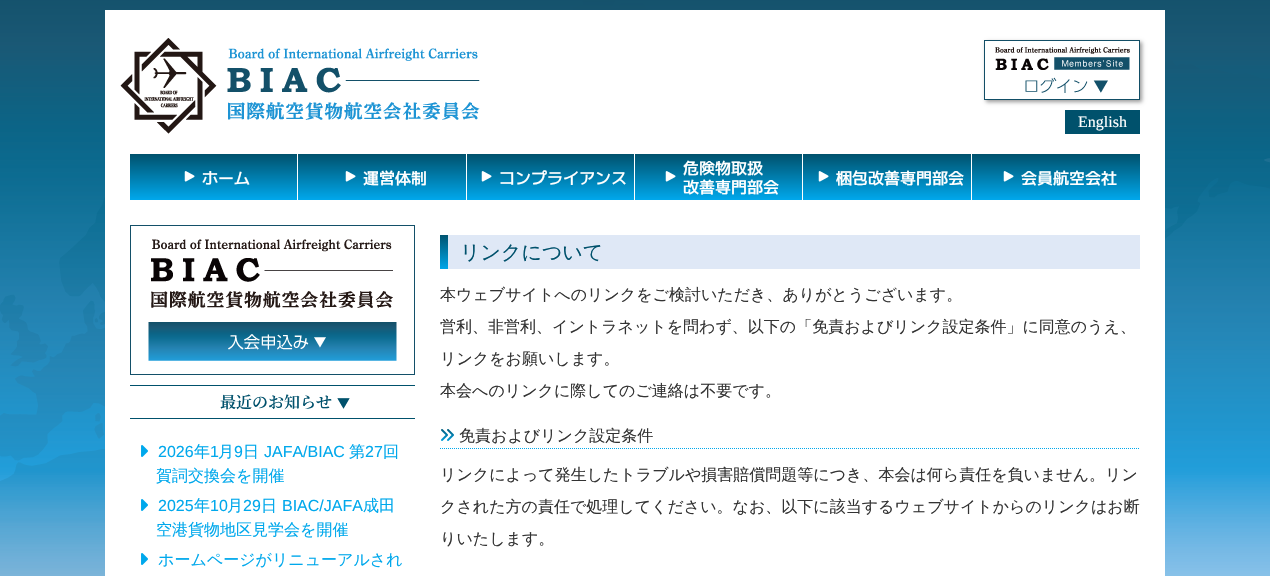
#include "include/core/SkBlurTypes.h"
#include "include/core/SkCanvas.h"
#include "include/core/SkData.h"
#include "include/core/SkFont.h"
#include "include/core/SkFontMgr.h"
#include "include/core/SkImage.h"
#include "include/core/SkMaskFilter.h"
#include "include/core/SkPaint.h"
#include "include/core/SkPathBuilder.h"
#include "include/core/SkTextBlob.h"
#include "include/effects/SkDashPathEffect.h"
#include "include/effects/SkGradientShader.h"
#include "include/utils/SkParsePath.h"

extern sk_sp<SkFontMgr> fontMgr;

void draw(SkCanvas* canvas) {
  SkPaint p;
  p.setAntiAlias(true);
  canvas->clear(SK_ColorWHITE);
  canvas->drawImageRect(SkImages::DeferredFromEncodedData(SkData::MakeFromFileName("images/1.png")), SkRect::MakeLTRB(0, 0, 1270, 576), SkSamplingOptions());
  p.setColor(SK_ColorWHITE);
  canvas->drawRect(SkRect::MakeLTRB(105, 10, 1165, 576), p);
  canvas->drawImageRect(SkImages::DeferredFromEncodedData(SkData::MakeFromFileName("images/2.png")), SkRect::MakeLTRB(120, 38, 480, 134), SkSamplingOptions());
  p.setColor(SkColorSetARGB(102, 0, 0, 0));
  p.setMaskFilter(SkMaskFilter::MakeBlur(kNormal_SkBlurStyle, 2));
  canvas->drawRect(SkRect::MakeLTRB(986, 42, 1142, 102), p);
  p.setMaskFilter(nullptr);
  canvas->drawImageRect(SkImages::DeferredFromEncodedData(SkData::MakeFromFileName("images/3.png")), SkRect::MakeLTRB(984, 40, 1140, 100), SkSamplingOptions());
  p.setColor(SkColorSetRGB(0, 81, 108));
  canvas->drawRect(SkRect::MakeLTRB(1065, 110, 1140, 134), p);
  {
    const SkColor colors[] = {SkColorSetRGB(0, 81, 108), SkColorSetRGB(0, 168, 236)};
    const float stops[] = {0, 1};
    const SkPoint ends[] = {{214, 154}, {214, 200}};
    p.setShader(SkGradientShader::MakeLinear(ends, colors, stops, 2, SkTileMode::kClamp));
    p.setAlpha(255);
  }
  canvas->drawRect(SkRect::MakeLTRB(130, 154, 297, 200), p);
  canvas->drawImageRect(SkImages::DeferredFromEncodedData(SkData::MakeFromFileName("images/4.png")), SkRect::MakeLTRB(184, 171, 195, 182), SkSamplingOptions());
  {
    const SkColor colors[] = {SkColorSetRGB(0, 81, 108), SkColorSetRGB(0, 168, 236)};
    const float stops[] = {0, 1};
    const SkPoint ends[] = {{382, 154}, {382, 200}};
    p.setShader(SkGradientShader::MakeLinear(ends, colors, stops, 2, SkTileMode::kClamp));
    p.setAlpha(255);
  }
  canvas->drawRect(SkRect::MakeLTRB(298, 154, 466, 200), p);
  canvas->drawImageRect(SkImages::DeferredFromEncodedData(SkData::MakeFromFileName("images/4.png")), SkRect::MakeLTRB(345, 171, 356, 182), SkSamplingOptions());
  {
    const SkColor colors[] = {SkColorSetRGB(0, 81, 108), SkColorSetRGB(0, 168, 236)};
    const float stops[] = {0, 1};
    const SkPoint ends[] = {{551, 154}, {551, 200}};
    p.setShader(SkGradientShader::MakeLinear(ends, colors, stops, 2, SkTileMode::kClamp));
    p.setAlpha(255);
  }
  canvas->drawRect(SkRect::MakeLTRB(467, 154, 634, 200), p);
  canvas->drawImageRect(SkImages::DeferredFromEncodedData(SkData::MakeFromFileName("images/4.png")), SkRect::MakeLTRB(481, 171, 492, 182), SkSamplingOptions());
  {
    const SkColor colors[] = {SkColorSetRGB(0, 81, 108), SkColorSetRGB(0, 168, 236)};
    const float stops[] = {0, 1};
    const SkPoint ends[] = {{719, 154}, {719, 200}};
    p.setShader(SkGradientShader::MakeLinear(ends, colors, stops, 2, SkTileMode::kClamp));
    p.setAlpha(255);
  }
  canvas->drawRect(SkRect::MakeLTRB(635, 154, 802, 200), p);
  canvas->drawImageRect(SkImages::DeferredFromEncodedData(SkData::MakeFromFileName("images/4.png")), SkRect::MakeLTRB(665, 171, 676, 182), SkSamplingOptions());
  {
    const SkColor colors[] = {SkColorSetRGB(0, 81, 108), SkColorSetRGB(0, 168, 236)};
    const float stops[] = {0, 1};
    const SkPoint ends[] = {{887, 154}, {887, 200}};
    p.setShader(SkGradientShader::MakeLinear(ends, colors, stops, 2, SkTileMode::kClamp));
    p.setAlpha(255);
  }
  canvas->drawRect(SkRect::MakeLTRB(803, 154, 971, 200), p);
  canvas->drawImageRect(SkImages::DeferredFromEncodedData(SkData::MakeFromFileName("images/4.png")), SkRect::MakeLTRB(818, 171, 829, 182), SkSamplingOptions());
  {
    const SkColor colors[] = {SkColorSetRGB(0, 81, 108), SkColorSetRGB(0, 168, 236)};
    const float stops[] = {0, 1};
    const SkPoint ends[] = {{1056, 154}, {1056, 200}};
    p.setShader(SkGradientShader::MakeLinear(ends, colors, stops, 2, SkTileMode::kClamp));
    p.setAlpha(255);
  }
  canvas->drawRect(SkRect::MakeLTRB(972, 154, 1140, 200), p);
  canvas->drawImageRect(SkImages::DeferredFromEncodedData(SkData::MakeFromFileName("images/4.png")), SkRect::MakeLTRB(1003, 171, 1014, 182), SkSamplingOptions());
  canvas->drawImageRect(SkImages::DeferredFromEncodedData(SkData::MakeFromFileName("images/5.png")), SkRect::MakeLTRB(130, 225, 415, 375), SkSamplingOptions());
  p.setShader(nullptr);
  p.setColor(SkColorSetRGB(0, 81, 108));
  canvas->drawRect(SkRect::MakeLTRB(130, 385, 415, 386), p);
  canvas->drawRect(SkRect::MakeLTRB(130, 418, 415, 419), p);
  canvas->drawImageRect(SkImages::DeferredFromEncodedData(SkData::MakeFromFileName("images/6.png")), SkRect::MakeLTRB(141, 445, 148, 457), SkSamplingOptions());
  canvas->drawImageRect(SkImages::DeferredFromEncodedData(SkData::MakeFromFileName("images/6.png")), SkRect::MakeLTRB(141, 499, 148, 511), SkSamplingOptions());
  canvas->drawImageRect(SkImages::DeferredFromEncodedData(SkData::MakeFromFileName("images/6.png")), SkRect::MakeLTRB(141, 553, 148, 565), SkSamplingOptions());
  p.setColor(SkColorSetRGB(223, 232, 246));
  canvas->drawRect(SkRect::MakeLTRB(448, 235, 1140, 269), p);
  canvas->drawImageRect(SkImages::DeferredFromEncodedData(SkData::MakeFromFileName("images/7.png")), SkRect::MakeLTRB(440, 235, 448, 269), SkSamplingOptions());
  p.setStyle(SkPaint::kStroke_Style);
  p.setStrokeWidth(1);
  p.setColor(SkColorSetRGB(0, 168, 236));
  p.setPathEffect(SkDashPathEffect::Make({{1, 1}}, 0));
  canvas->drawPath(SkPathBuilder().moveTo(440, 448.5f).lineTo(1140, 448.5f).detach(), p);
  p.setPathEffect(nullptr);
  canvas->drawImageRect(SkImages::DeferredFromEncodedData(SkData::MakeFromFileName("images/8.png")), SkRect::MakeLTRB(441, 429, 454, 441), SkSamplingOptions());
  SkFont font1(fontMgr->matchFamilyStyle("Liberation Serif", SkFontStyle::Normal()), 16);
  font1.setSubpixel(true);
  p.setStyle(SkPaint::kFill_Style);
  p.setColor(SK_ColorWHITE);
  canvas->drawString("English", 1078, 127, font1, p);
  SkFont font2(fontMgr->matchFamilyStyle("M PLUS 1", SkFontStyle(500, SkFontStyle::kNormal_Width, SkFontStyle::kUpright_Slant)), 16);
  font2.setSubpixel(true);
  canvas->drawString("ホーム", 202, 184, font2, p);
  canvas->drawString("運営体制", 363, 184, font2, p);
  canvas->drawString("コンプライアンス", 499, 184, font2, p);
  canvas->drawString("危険物取扱", 683, 174, font2, p);
  canvas->drawString("改善専門部会", 683, 193, font2, p);
  canvas->drawString("梱包改善専門部会", 836, 184, font2, p);
  canvas->drawString("会員航空会社", 1021, 184, font2, p);
  SkFont font3(fontMgr->matchFamilyStyle("Noto Serif JP", SkFontStyle(600, SkFontStyle::kNormal_Width, SkFontStyle::kUpright_Slant)), 16);
  font3.setSubpixel(true);
  p.setColor(SkColorSetRGB(0, 81, 108));
  canvas->drawString("最近のお知らせ", 220, 408, font3, p);
  SkFont font4(fontMgr->matchFamilyStyle("Noto Serif JP", SkFontStyle(600, SkFontStyle::kNormal_Width, SkFontStyle::kUpright_Slant)), 13);
  font4.setSubpixel(true);
  canvas->drawString("▼", 337, 408, font4, p);
  SkFont font5(fontMgr->matchFamilyStyle("Liberation Sans", SkFontStyle::Normal()), 16);
  font5.setSubpixel(true);
  p.setColor(SkColorSetRGB(0, 168, 236));
  canvas->drawString("2026", 158, 457, font5, p);
  SkFont font6(fontMgr->matchFamilyStyle("WenQuanYi Zen Hei", SkFontStyle(500, SkFontStyle::kNormal_Width, SkFontStyle::kUpright_Slant)), 16);
  font6.setSubpixel(true);
  canvas->drawString("年", 194, 457, font6, p);
  canvas->drawString("1", 210, 457, font5, p);
  canvas->drawString("月", 218, 457, font6, p);
  canvas->drawString("9", 234, 457, font5, p);
  canvas->drawString("日", 243, 457, font6, p);
  canvas->drawString("JAFA/BIAC", 264, 457, font5, p);
  canvas->drawString("第", 349, 457, font6, p);
  canvas->drawString("27", 365, 457, font5, p);
  canvas->drawString("回", 383, 457, font6, p);
  canvas->drawString("賀詞交換会を開催", 156, 481, font6, p);
  canvas->drawString("2025", 158, 511, font5, p);
  canvas->drawString("年", 194, 511, font6, p);
  canvas->drawString("10", 210, 511, font5, p);
  canvas->drawString("月", 227, 511, font6, p);
  canvas->drawString("29", 243, 511, font5, p);
  canvas->drawString("日", 261, 511, font6, p);
  canvas->drawString("BIAC/JAFA", 282, 511, font5, p);
  canvas->drawString("成田", 363, 511, font6, p);
  canvas->drawString("空港貨物地区見学会を開催", 156, 535, font6, p);
  canvas->drawString("ホームページがリニューアルされ", 158, 565, font6, p);
  SkFont font7(fontMgr->matchFamilyStyle("WenQuanYi Zen Hei", SkFontStyle(500, SkFontStyle::kNormal_Width, SkFontStyle::kUpright_Slant)), 20);
  font7.setSubpixel(true);
  p.setColor(SkColorSetRGB(0, 81, 108));
  canvas->drawString("リンクについて", 460, 259, font7, p);
  p.setColor(SkColorSetRGB(51, 51, 51));
  canvas->drawString("本ウェブサイトへのリンクをご検討いただき、ありがとうございます。", 440, 300, font6, p);
  canvas->drawString("営利、非営利、イントラネットを問わず、以下の「免責およびリンク設定条件」に同意のうえ、", 440, 332, font6, p);
  canvas->drawString("リンクをお願いします。", 440, 364, font6, p);
  canvas->drawString("本会へのリンクに際してのご連絡は不要です。", 440, 396, font6, p);
  canvas->drawString("免責およびリンク設定条件", 459, 441, font6, p);
  canvas->drawString("リンクによって発生したトラブルや損害賠償問題等につき、本会は何ら責任を負いません。リン", 440, 480, font6, p);
  canvas->drawString("クされた方の責任で処理してください。なお、以下に該当するウェブサイトからのリンクはお断", 440, 512, font6, p);
  canvas->drawString("りいたします。", 440, 544, font6, p);
}
